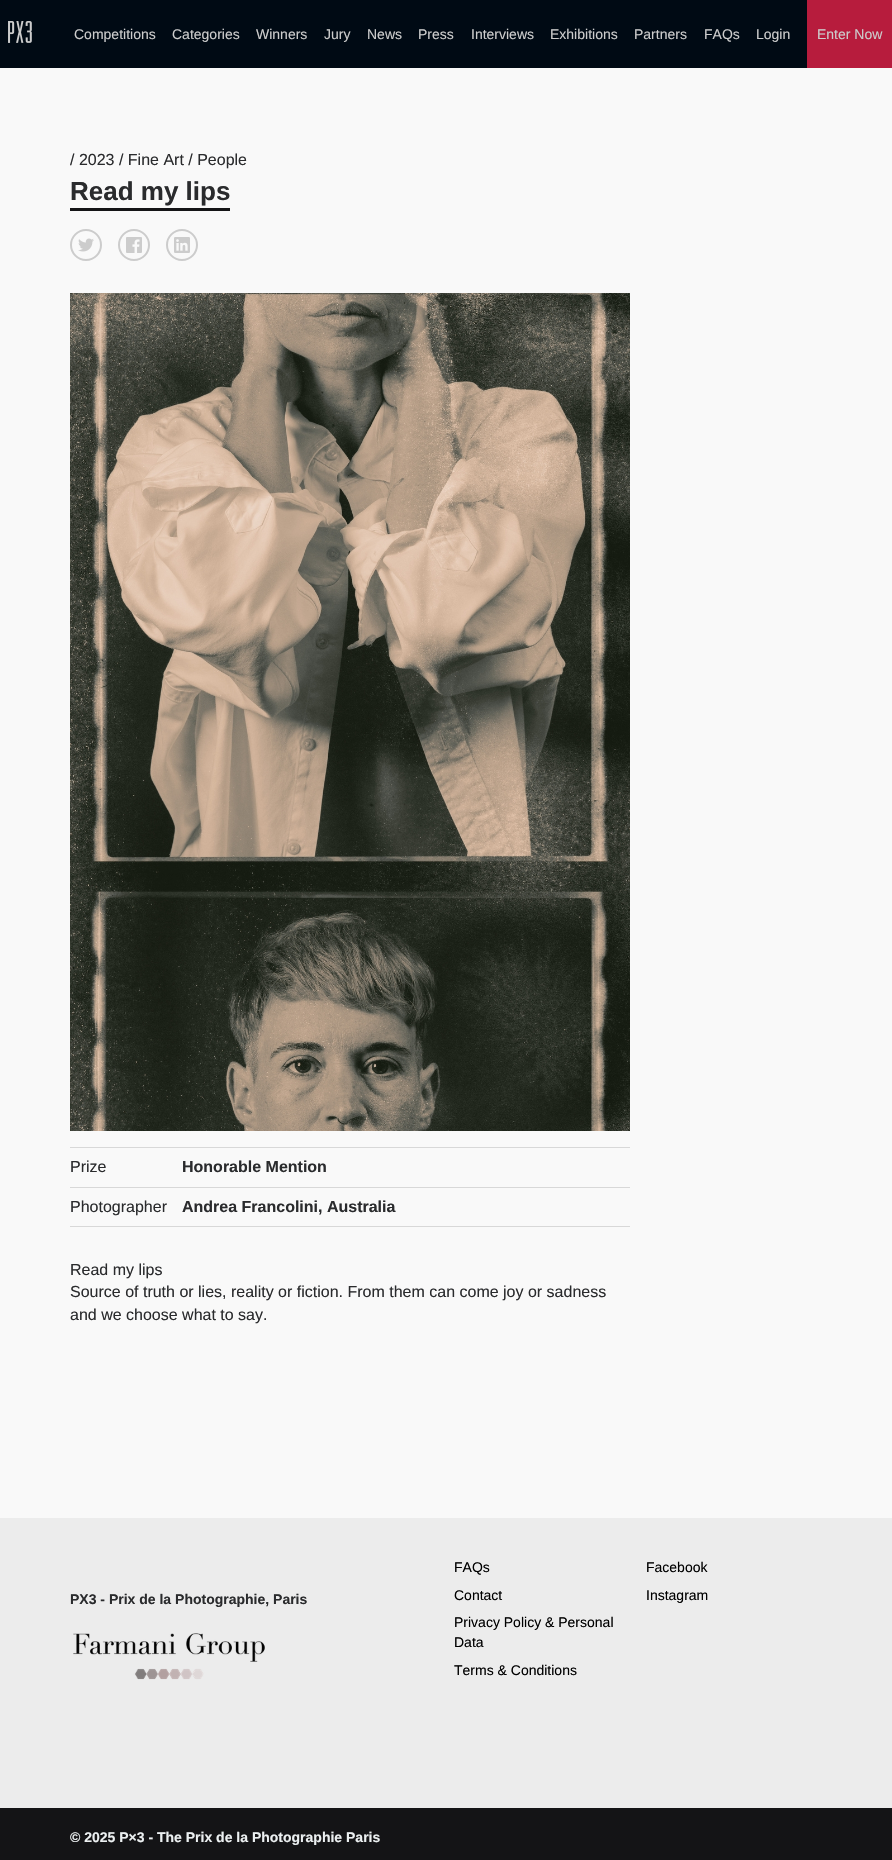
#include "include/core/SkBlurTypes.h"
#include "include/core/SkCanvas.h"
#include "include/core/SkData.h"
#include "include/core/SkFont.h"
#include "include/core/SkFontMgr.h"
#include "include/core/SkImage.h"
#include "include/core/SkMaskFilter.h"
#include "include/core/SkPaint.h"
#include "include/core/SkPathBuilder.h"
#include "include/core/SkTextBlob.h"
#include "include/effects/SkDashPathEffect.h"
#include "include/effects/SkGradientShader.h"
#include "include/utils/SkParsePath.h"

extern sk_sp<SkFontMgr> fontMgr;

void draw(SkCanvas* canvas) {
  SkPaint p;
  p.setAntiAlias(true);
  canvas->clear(SkColorSetRGB(249, 249, 249));
  p.setColor(SkColorSetRGB(0, 10, 20));
  canvas->drawRect(SkRect::MakeLTRB(0, 0, 807, 68), p);
  canvas->drawImageRect(SkImages::DeferredFromEncodedData(SkData::MakeFromFileName("images/1.png")), SkRect::MakeLTRB(8, 21, 32, 43), SkSamplingOptions());
  p.setColor(SkColorSetRGB(183, 28, 61));
  canvas->drawRect(SkRect::MakeLTRB(807, 0, 892, 68), p);
  p.setColor(SkColorSetRGB(20, 20, 22));
  canvas->drawRect(SkRect::MakeLTRB(70, 208, 230, 211), p);
  p.setStyle(SkPaint::kStroke_Style);
  p.setStrokeWidth(2);
  p.setColor(SkColorSetRGB(204, 204, 204));
  canvas->drawCircle(86, 245, 15, p);
  canvas->drawImageRect(SkImages::DeferredFromEncodedData(SkData::MakeFromFileName("images/2.png")), SkRect::MakeLTRB(78, 238, 94, 252), SkSamplingOptions());
  canvas->drawCircle(134, 245, 15, p);
  canvas->drawImageRect(SkImages::DeferredFromEncodedData(SkData::MakeFromFileName("images/3.png")), SkRect::MakeLTRB(126, 237, 142, 253), SkSamplingOptions());
  canvas->drawCircle(182, 245, 15, p);
  canvas->drawImageRect(SkImages::DeferredFromEncodedData(SkData::MakeFromFileName("images/4.png")), SkRect::MakeLTRB(174, 237, 190, 253), SkSamplingOptions());
  canvas->drawImageRect(SkImages::DeferredFromEncodedData(SkData::MakeFromFileName("images/5.png")), SkRect::MakeLTRB(70, 293, 630, 1131), SkSamplingOptions());
  p.setStyle(SkPaint::kFill_Style);
  p.setColor(SkColorSetRGB(216, 216, 216));
  canvas->drawRect(SkRect::MakeLTRB(70, 1147, 630, 1148), p);
  canvas->drawRect(SkRect::MakeLTRB(70, 1187, 630, 1188), p);
  canvas->drawRect(SkRect::MakeLTRB(70, 1226, 630, 1227), p);
  p.setColor(SkColorSetRGB(236, 236, 236));
  canvas->drawRect(SkRect::MakeLTRB(0, 1518, 892, 1808), p);
  canvas->drawImageRect(SkImages::DeferredFromEncodedData(SkData::MakeFromFileName("images/6.png")), SkRect::MakeLTRB(73, 1633, 265, 1680), SkSamplingOptions());
  p.setColor(SkColorSetRGB(20, 20, 22));
  canvas->drawRect(SkRect::MakeLTRB(0, 1808, 892, 1860), p);
  SkFont font1(fontMgr->matchFamilyStyle("Liberation Sans", SkFontStyle::Normal()), 14);
  font1.setSubpixel(true);
  p.setColor(SkColorSetRGB(204, 204, 204));
  canvas->drawString("Competitions", 74, 39, font1, p);
  canvas->drawString("Categories", 172, 39, font1, p);
  canvas->drawString("Winners", 256, 39, font1, p);
  canvas->drawString("Jury", 324, 39, font1, p);
  canvas->drawString("News", 367, 39, font1, p);
  canvas->drawString("Press", 418, 39, font1, p);
  canvas->drawString("Interviews", 471, 39, font1, p);
  canvas->drawString("Exhibitions", 550, 39, font1, p);
  canvas->drawString("Partners", 634, 39, font1, p);
  canvas->drawString("FAQs", 704, 39, font1, p);
  canvas->drawString("Login", 756, 39, font1, p);
  canvas->drawString("Enter Now", 817, 39, font1, p);
  SkFont font2(fontMgr->matchFamilyStyle("Liberation Sans", SkFontStyle::Normal()), 16);
  font2.setSubpixel(true);
  p.setColor(SkColorSetRGB(42, 43, 45));
  canvas->drawString("/ 2023 / Fine Art / People", 70, 165, font2, p);
  SkFont font3(fontMgr->matchFamilyStyle("Liberation Sans", SkFontStyle::Bold()), 26);
  font3.setSubpixel(true);
  canvas->drawString("Read my lips", 70, 200, font3, p);
  canvas->drawString("Prize", 70, 1172, font2, p);
  SkFont font4(fontMgr->matchFamilyStyle("Liberation Sans", SkFontStyle::Bold()), 16);
  font4.setSubpixel(true);
  canvas->drawString("Honorable Mention", 182, 1172, font4, p);
  canvas->drawString("Photographer", 70, 1212, font2, p);
  canvas->drawString("Andrea Francolini, Australia", 182, 1212, font4, p);
  canvas->drawString("Read my lips", 70, 1275, font2, p);
  canvas->drawString("Source of truth or lies, reality or fiction. From them can come joy or sadness", 70, 1297, font2, p);
  canvas->drawString("and we choose what to say.", 70, 1320, font2, p);
  SkFont font5(fontMgr->matchFamilyStyle("Liberation Sans", SkFontStyle::Bold()), 14);
  font5.setSubpixel(true);
  canvas->drawString("PX3 - Prix de la Photographie, Paris", 70, 1604, font5, p);
  p.setColor(SK_ColorBLACK);
  canvas->drawString("FAQs", 454, 1572, font1, p);
  canvas->drawString("Contact", 454, 1600, font1, p);
  canvas->drawString("Privacy Policy & Personal", 454, 1627, font1, p);
  canvas->drawString("Data", 454, 1647, font1, p);
  canvas->drawString("Terms & Conditions", 454, 1675, font1, p);
  canvas->drawString("Facebook", 646, 1572, font1, p);
  canvas->drawString("Instagram", 646, 1600, font1, p);
  p.setColor(SkColorSetRGB(236, 240, 241));
  canvas->drawString("© 2025 P×3 - The Prix de la Photographie Paris", 70, 1842, font5, p);
}
